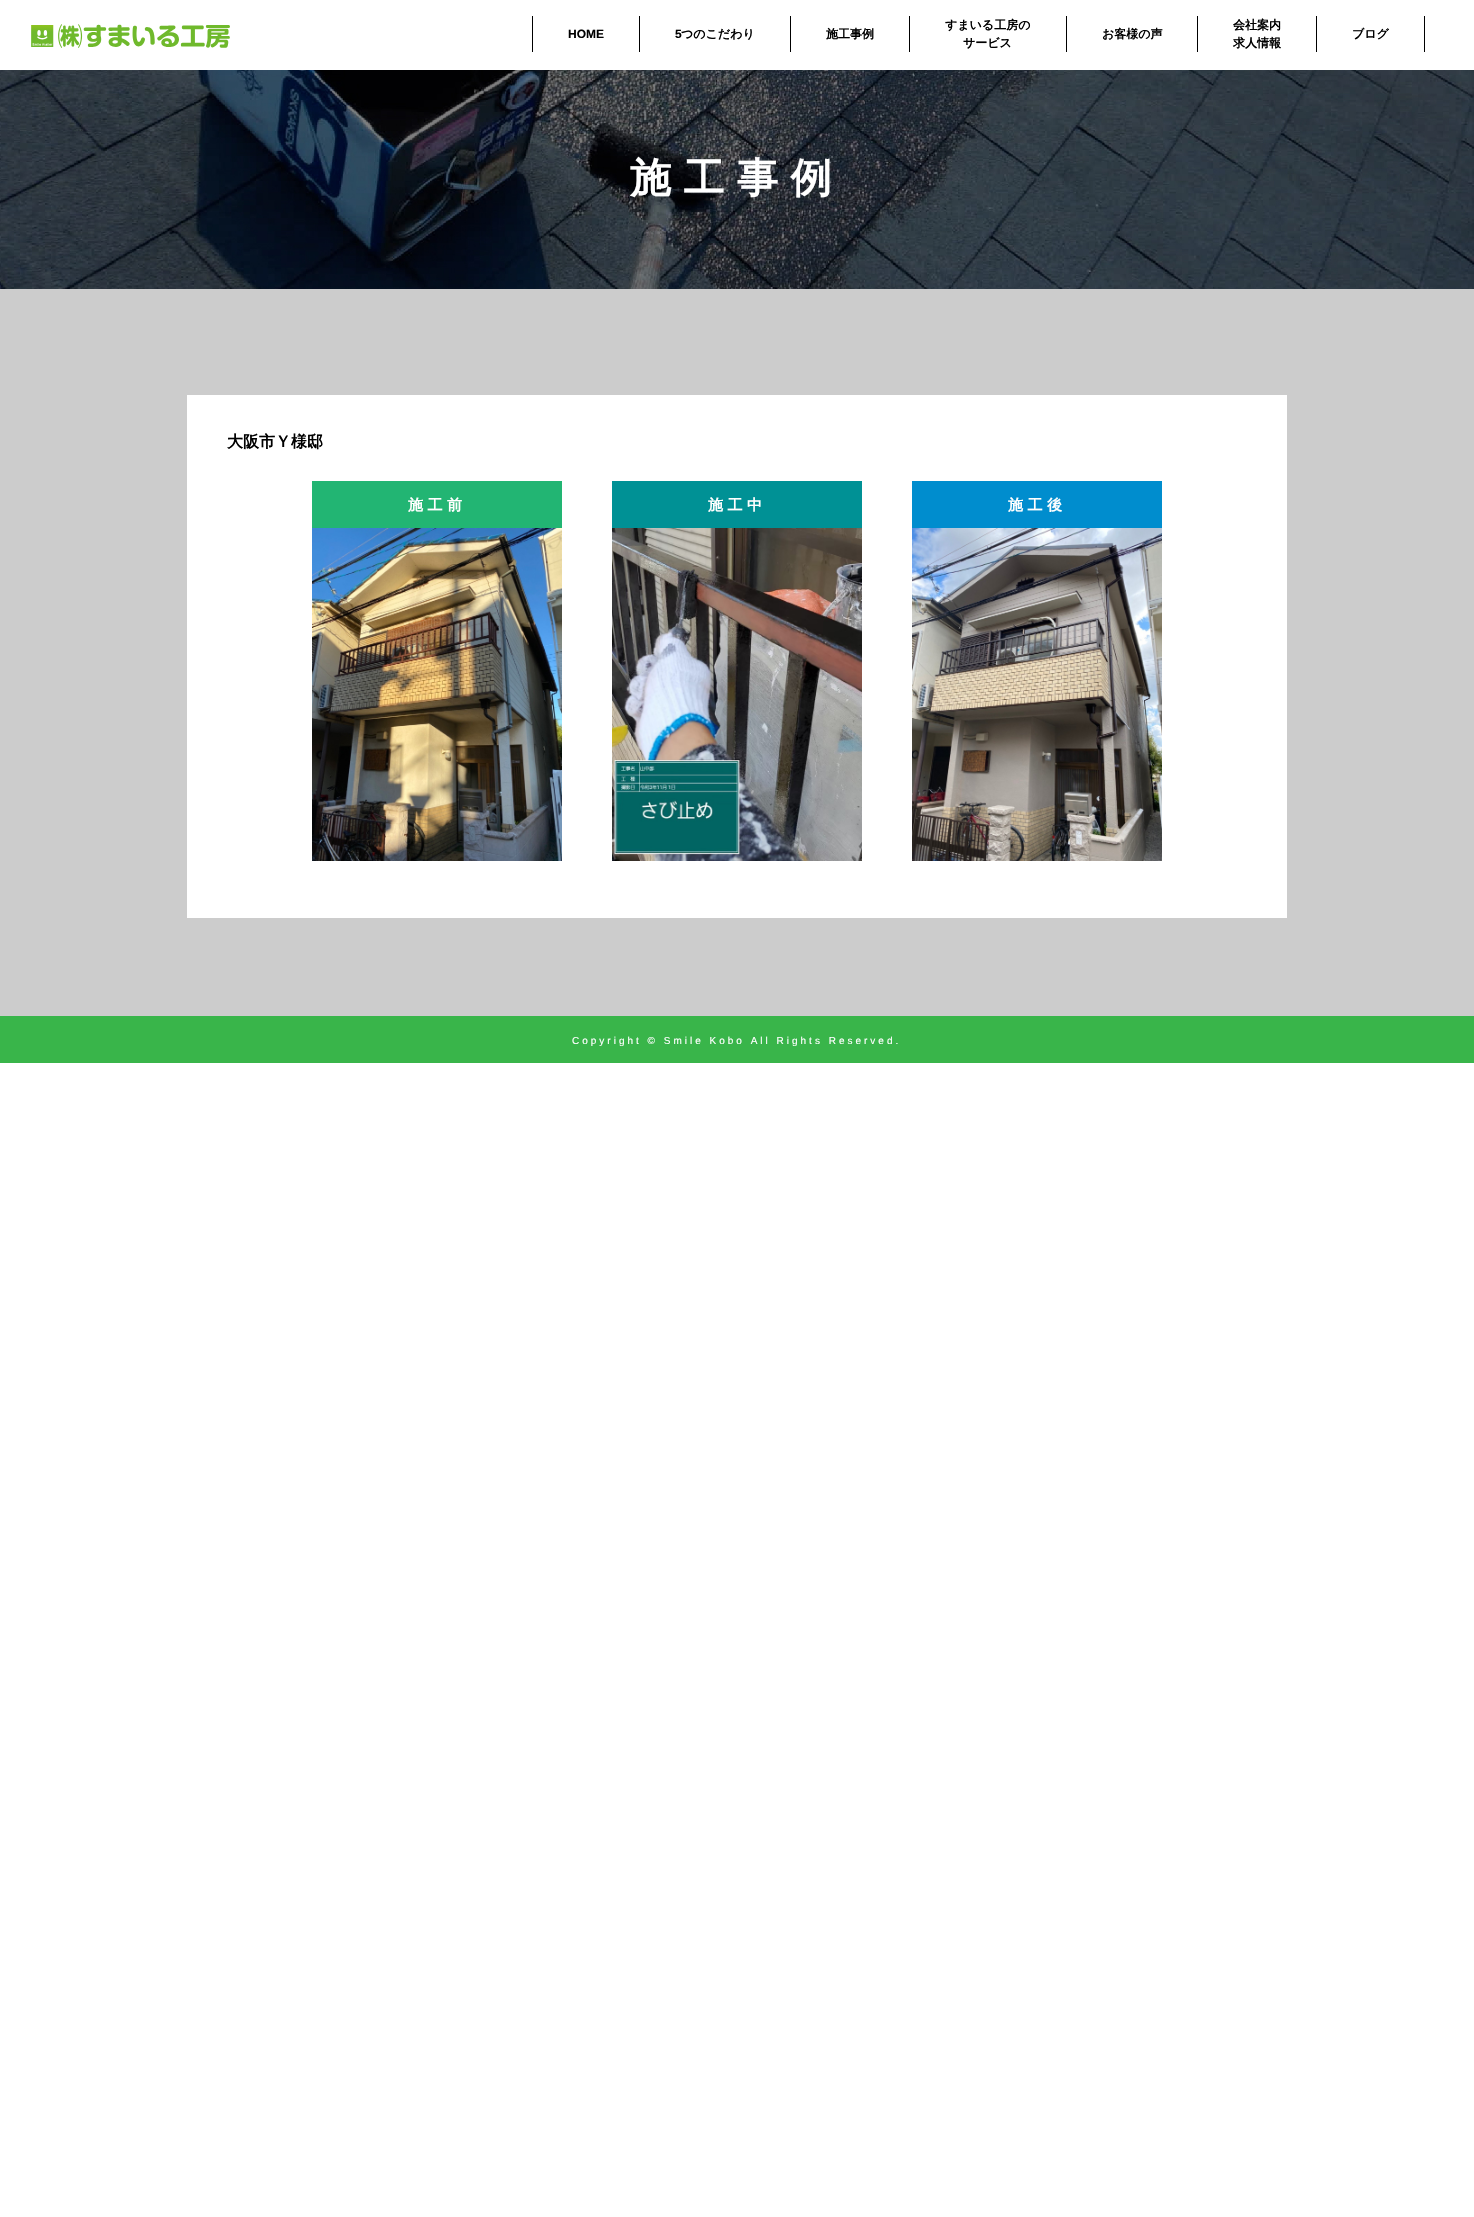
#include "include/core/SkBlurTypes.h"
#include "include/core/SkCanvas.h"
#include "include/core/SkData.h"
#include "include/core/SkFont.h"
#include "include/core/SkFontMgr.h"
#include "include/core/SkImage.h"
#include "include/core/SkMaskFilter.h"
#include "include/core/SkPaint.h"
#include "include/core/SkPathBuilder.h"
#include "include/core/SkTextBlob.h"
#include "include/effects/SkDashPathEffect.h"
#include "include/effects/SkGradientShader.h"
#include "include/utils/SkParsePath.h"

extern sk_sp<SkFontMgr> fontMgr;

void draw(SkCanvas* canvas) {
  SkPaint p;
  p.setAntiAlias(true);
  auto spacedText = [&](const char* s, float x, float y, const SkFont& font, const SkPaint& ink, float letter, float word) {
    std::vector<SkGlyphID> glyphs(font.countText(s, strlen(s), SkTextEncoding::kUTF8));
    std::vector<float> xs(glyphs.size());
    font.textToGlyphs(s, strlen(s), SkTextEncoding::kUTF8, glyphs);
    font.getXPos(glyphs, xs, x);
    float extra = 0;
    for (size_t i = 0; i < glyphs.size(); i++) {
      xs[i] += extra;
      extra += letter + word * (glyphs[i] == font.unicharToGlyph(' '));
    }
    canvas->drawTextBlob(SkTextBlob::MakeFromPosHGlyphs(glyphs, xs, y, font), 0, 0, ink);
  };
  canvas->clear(SK_ColorWHITE);
  canvas->drawImageRect(SkImages::DeferredFromEncodedData(SkData::MakeFromFileName("images/1.png")), SkRect::MakeLTRB(31, 24, 230, 48), SkSamplingOptions());
  p.setColor(SK_ColorBLACK);
  canvas->drawRect(SkRect::MakeLTRB(532, 16, 533, 52), p);
  canvas->drawRect(SkRect::MakeLTRB(639, 16, 640, 52), p);
  canvas->drawRect(SkRect::MakeLTRB(790, 16, 791, 52), p);
  canvas->drawRect(SkRect::MakeLTRB(909, 16, 910, 52), p);
  canvas->drawRect(SkRect::MakeLTRB(1066, 16, 1067, 52), p);
  canvas->drawRect(SkRect::MakeLTRB(1197, 16, 1198, 52), p);
  canvas->drawRect(SkRect::MakeLTRB(1424, 16, 1425, 52), p);
  canvas->drawRect(SkRect::MakeLTRB(1316, 16, 1317, 52), p);
  canvas->drawImageRect(SkImages::DeferredFromEncodedData(SkData::MakeFromFileName("images/2.png")), SkRect::MakeLTRB(0, 70, 1474, 289), SkSamplingOptions());
  p.setColor(SkColorSetRGB(204, 204, 204));
  canvas->drawRect(SkRect::MakeLTRB(0, 289, 1474, 1016), p);
  p.setColor(SK_ColorWHITE);
  canvas->drawRect(SkRect::MakeLTRB(187, 395, 1287, 918), p);
  p.setColor(SkColorSetRGB(34, 181, 115));
  canvas->drawRect(SkRect::MakeLTRB(312, 481, 562, 528), p);
  canvas->drawImageRect(SkImages::DeferredFromEncodedData(SkData::MakeFromFileName("images/3.png")), SkRect::MakeLTRB(312, 528, 562, 861), SkSamplingOptions());
  p.setColor(SkColorSetRGB(0, 145, 149));
  canvas->drawRect(SkRect::MakeLTRB(612, 481, 862, 528), p);
  canvas->drawImageRect(SkImages::DeferredFromEncodedData(SkData::MakeFromFileName("images/4.png")), SkRect::MakeLTRB(612, 528, 862, 861), SkSamplingOptions());
  p.setColor(SkColorSetRGB(0, 141, 206));
  canvas->drawRect(SkRect::MakeLTRB(912, 481, 1162, 528), p);
  canvas->drawImageRect(SkImages::DeferredFromEncodedData(SkData::MakeFromFileName("images/5.png")), SkRect::MakeLTRB(912, 528, 1162, 861), SkSamplingOptions());
  p.setColor(SkColorSetRGB(57, 181, 74));
  canvas->drawRect(SkRect::MakeLTRB(0, 1016, 1474, 1063), p);
  SkFont font1(fontMgr->matchFamilyStyle("Liberation Sans", SkFontStyle::Bold()), 12);
  font1.setSubpixel(true);
  p.setColor(SK_ColorBLACK);
  canvas->drawString("HOME", 568, 38, font1, p);
  canvas->drawString("5", 675, 38, font1, p);
  SkFont font2(fontMgr->matchFamilyStyle("WenQuanYi Zen Hei", SkFontStyle::Bold()), 12);
  font2.setSubpixel(true);
  canvas->drawString("つのこだわり", 681, 38, font2, p);
  canvas->drawString("施工事例", 826, 38, font2, p);
  canvas->drawString("すまいる工房の", 945, 29, font2, p);
  canvas->drawString("サービス", 963, 47, font2, p);
  canvas->drawString("お客様の声", 1102, 38, font2, p);
  canvas->drawString("会社案内", 1233, 29, font2, p);
  canvas->drawString("求人情報", 1233, 47, font2, p);
  canvas->drawString("ブログ", 1352, 38, font2, p);
  SkFont font3(fontMgr->matchFamilyStyle("WenQuanYi Zen Hei", SkFontStyle::Bold()), 41);
  font3.setSubpixel(true);
  p.setColor(SK_ColorWHITE);
  spacedText("施工事例", 630, 192, font3, p, 12.5f, 0);
  SkFont font4(fontMgr->matchFamilyStyle("WenQuanYi Zen Hei", SkFontStyle::Bold()), 16);
  font4.setSubpixel(true);
  p.setColor(SK_ColorBLACK);
  canvas->drawString("大阪市Ｙ様邸", 227, 447, font4, p);
  SkFont font5(fontMgr->matchFamilyStyle("WenQuanYi Zen Hei", SkFontStyle::Bold()), 15);
  font5.setSubpixel(true);
  p.setColor(SK_ColorWHITE);
  spacedText("施工前", 408, 510, font5, p, 4.5f, 0);
  spacedText("施工中", 708, 510, font5, p, 4.5f, 0);
  spacedText("施工後", 1008, 510, font5, p, 4.5f, 0);
  SkFont font6(fontMgr->matchFamilyStyle("Liberation Sans", SkFontStyle::Normal()), 10);
  font6.setSubpixel(true);
  spacedText("Copyright © Smile Kobo All Rights Reserved.", 572, 1044, font6, p, 3, 0);
}
